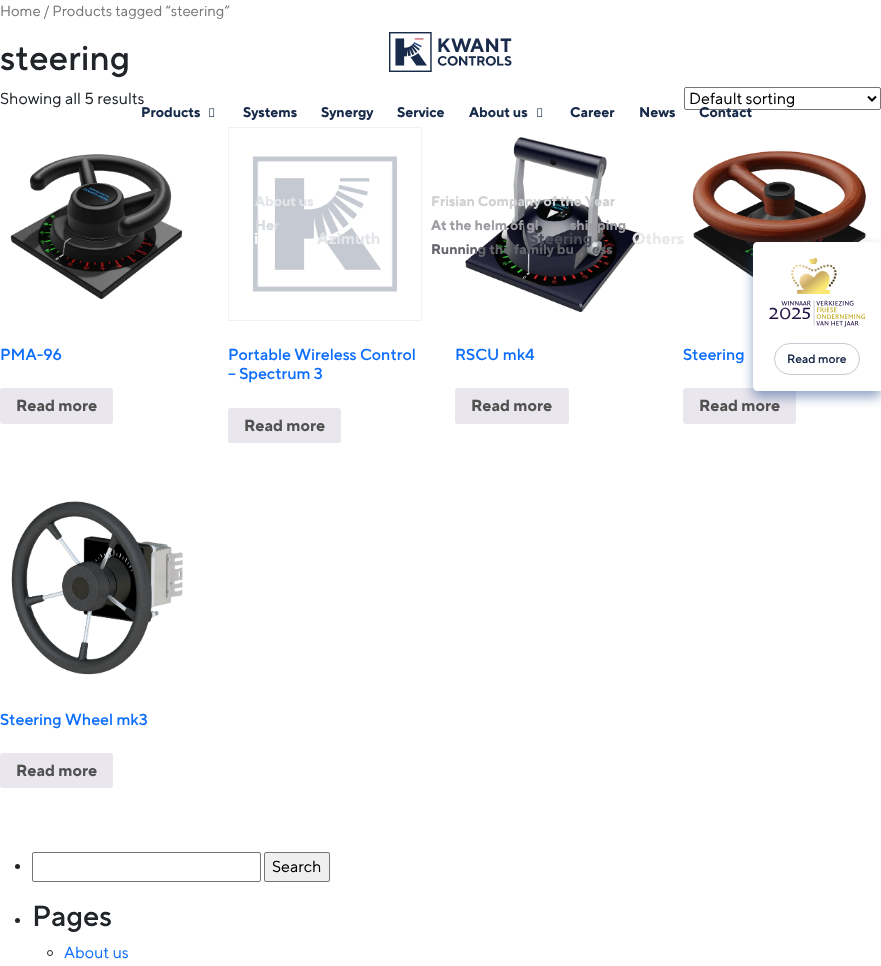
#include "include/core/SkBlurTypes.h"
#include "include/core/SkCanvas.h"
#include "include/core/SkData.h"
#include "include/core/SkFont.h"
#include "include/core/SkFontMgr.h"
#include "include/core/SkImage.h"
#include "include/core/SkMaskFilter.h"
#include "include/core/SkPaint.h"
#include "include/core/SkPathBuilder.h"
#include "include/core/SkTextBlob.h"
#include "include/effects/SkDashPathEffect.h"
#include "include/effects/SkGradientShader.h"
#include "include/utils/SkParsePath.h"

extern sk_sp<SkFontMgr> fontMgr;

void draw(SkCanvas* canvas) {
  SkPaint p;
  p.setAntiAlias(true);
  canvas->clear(SK_ColorWHITE);
  p.setStyle(SkPaint::kStroke_Style);
  p.setStrokeWidth(1);
  p.setColor(SkColorSetRGB(118, 118, 118));
  canvas->drawRoundRect(SkRect::MakeLTRB(684.5f, 87.5f, 880.5f, 109.5f), 1.5f, 1.5f, p);
  p.setStrokeWidth(2);
  p.setColor(SK_ColorBLACK);
  canvas->drawPath(SkPathBuilder().moveTo(868, 96.5f).lineTo(872, 100.5f).lineTo(876, 96.5f).detach(), p);
  canvas->drawImageRect(SkImages::DeferredFromEncodedData(SkData::MakeFromFileName("images/1.png")), SkRect::MakeLTRB(10, 154, 183, 300), SkSamplingOptions());
  p.setStyle(SkPaint::kFill_Style);
  p.setColor(SkColorSetRGB(233, 230, 237));
  canvas->drawRoundRect(SkRect::MakeLTRB(0, 388, 113, 424), 3, 3, p);
  p.setStyle(SkPaint::kStroke_Style);
  p.setStrokeWidth(1);
  p.setColor(SkColorSetRGB(242, 242, 242));
  canvas->drawRect(SkRect::MakeLTRB(228.5f, 127.5f, 421.5f, 320.5f), p);
  canvas->drawImageRect(SkImages::DeferredFromEncodedData(SkData::MakeFromFileName("images/2.png")), SkRect::MakeLTRB(253, 156, 397, 292), SkSamplingOptions());
  p.setStyle(SkPaint::kFill_Style);
  p.setColor(SkColorSetRGB(233, 230, 237));
  canvas->drawRoundRect(SkRect::MakeLTRB(228, 408, 341, 443), 3, 3, p);
  canvas->drawImageRect(SkImages::DeferredFromEncodedData(SkData::MakeFromFileName("images/3.png")), SkRect::MakeLTRB(465, 137, 640, 313), SkSamplingOptions());
  canvas->drawRoundRect(SkRect::MakeLTRB(455, 388, 569, 424), 3, 3, p);
  canvas->drawImageRect(SkImages::DeferredFromEncodedData(SkData::MakeFromFileName("images/4.png")), SkRect::MakeLTRB(692, 150, 866, 277), SkSamplingOptions());
  canvas->drawRoundRect(SkRect::MakeLTRB(683, 388, 796, 424), 3, 3, p);
  canvas->drawImageRect(SkImages::DeferredFromEncodedData(SkData::MakeFromFileName("images/5.png")), SkRect::MakeLTRB(11, 501, 183, 675), SkSamplingOptions());
  canvas->drawRoundRect(SkRect::MakeLTRB(0, 753, 113, 788), 3, 3, p);
  p.setColor(SkColorSetRGB(33, 37, 41));
  canvas->drawCircle(17.5f, 866.5f, 2.5f, p);
  p.setStyle(SkPaint::kStroke_Style);
  p.setColor(SkColorSetRGB(118, 118, 118));
  canvas->drawRoundRect(SkRect::MakeLTRB(32.5f, 852.5f, 260.5f, 881.5f), 1.5f, 1.5f, p);
  p.setStyle(SkPaint::kFill_Style);
  p.setColor(SkColorSetRGB(239, 239, 239));
  canvas->drawRoundRect(SkRect::MakeLTRB(264.5f, 852.5f, 329.5f, 881.5f), 1.5f, 1.5f, p);
  p.setStyle(SkPaint::kStroke_Style);
  p.setColor(SkColorSetRGB(118, 118, 118));
  canvas->drawRoundRect(SkRect::MakeLTRB(264.5f, 852.5f, 329.5f, 881.5f), 1.5f, 1.5f, p);
  p.setStyle(SkPaint::kFill_Style);
  p.setColor(SkColorSetRGB(33, 37, 41));
  canvas->drawCircle(17.5f, 920.5f, 2.5f, p);
  p.setStyle(SkPaint::kStroke_Style);
  canvas->drawCircle(50, 953, 2.5f, p);
  canvas->drawImageRect(SkImages::DeferredFromEncodedData(SkData::MakeFromFileName("images/6.png")), SkRect::MakeLTRB(389, 32, 512, 72), SkSamplingOptions());
  canvas->drawImageRect(SkImages::DeferredFromEncodedData(SkData::MakeFromFileName("images/7.png")), SkRect::MakeLTRB(209, 108, 215, 117), SkSamplingOptions());
  canvas->drawImageRect(SkImages::DeferredFromEncodedData(SkData::MakeFromFileName("images/7.png")), SkRect::MakeLTRB(537, 108, 543, 117), SkSamplingOptions());
  p.setStyle(SkPaint::kFill_Style);
  p.setColor(SkColorSetARGB(128, 33, 71, 139));
  p.setMaskFilter(SkMaskFilter::MakeBlur(kNormal_SkBlurStyle, 6));
  canvas->drawRoundRect(SkRect::MakeLTRB(753, 248, 881, 397), 4, 4, p);
  p.setMaskFilter(nullptr);
  p.setColor(SK_ColorWHITE);
  canvas->drawPath(SkPathBuilder().moveTo(757, 242).lineTo(881, 242).lineTo(881, 391).lineTo(757, 391).cubicTo(755, 391, 753, 389, 753, 387).lineTo(753, 246).cubicTo(753, 244, 755, 242, 757, 242).close().detach(), p);
  canvas->drawImageRect(SkImages::DeferredFromEncodedData(SkData::MakeFromFileName("images/8.png")), SkRect::MakeLTRB(769, 258, 865, 327), SkSamplingOptions());
  p.setStyle(SkPaint::kStroke_Style);
  p.setColor(SkColorSetRGB(198, 202, 210));
  canvas->drawRoundRect(SkRect::MakeLTRB(774.5f, 343.5f, 859.5f, 374.5f), 15.5f, 15.5f, p);
  SkFont font1(fontMgr->matchFamilyStyle("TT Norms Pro", SkFontStyle::Normal()), 14.75f);
  font1.setSubpixel(true);
  p.setStyle(SkPaint::kFill_Style);
  p.setColor(SkColorSetRGB(118, 118, 118));
  canvas->drawString("Home / Products tagged “steering”", 0, 16, font1, p);
  SkFont font2(fontMgr->matchFamilyStyle("TT Norms Pro", SkFontStyle(500, SkFontStyle::kNormal_Width, SkFontStyle::kUpright_Slant)), 35);
  font2.setSubpixel(true);
  p.setColor(SkColorSetRGB(33, 37, 41));
  canvas->drawString("steering", 0, 70, font2, p);
  SkFont font3(fontMgr->matchFamilyStyle("TT Norms Pro", SkFontStyle::Normal()), 16);
  font3.setSubpixel(true);
  canvas->drawString("Showing all 5 results", 0, 104, font3, p);
  p.setColor(SK_ColorBLACK);
  canvas->drawString("Default sorting", 689, 104, font3, p);
  SkFont font4(fontMgr->matchFamilyStyle("TT Norms Pro", SkFontStyle(500, SkFontStyle::kNormal_Width, SkFontStyle::kUpright_Slant)), 16);
  font4.setSubpixel(true);
  p.setColor(SkColorSetRGB(13, 110, 253));
  canvas->drawString("PMA-96", 0, 360, font4, p);
  SkFont font5(fontMgr->matchFamilyStyle("TT Norms Pro", SkFontStyle::Bold()), 16);
  font5.setSubpixel(true);
  p.setColor(SkColorSetRGB(81, 81, 81));
  canvas->drawString("Read more", 16, 411, font5, p);
  p.setColor(SkColorSetRGB(13, 110, 253));
  canvas->drawString("Portable Wireless Control", 228, 360, font4, p);
  canvas->drawString("– Spectrum 3", 228, 379, font4, p);
  p.setColor(SkColorSetRGB(81, 81, 81));
  canvas->drawString("Read more", 244, 431, font5, p);
  p.setColor(SkColorSetRGB(13, 110, 253));
  canvas->drawString("RSCU mk4", 455, 360, font4, p);
  p.setColor(SkColorSetRGB(81, 81, 81));
  canvas->drawString("Read more", 471, 411, font5, p);
  p.setColor(SkColorSetRGB(13, 110, 253));
  canvas->drawString("Steering", 683, 360, font4, p);
  p.setColor(SkColorSetRGB(81, 81, 81));
  canvas->drawString("Read more", 699, 411, font5, p);
  p.setColor(SkColorSetRGB(13, 110, 253));
  canvas->drawString("Steering Wheel mk3", 0, 725, font4, p);
  p.setColor(SkColorSetRGB(81, 81, 81));
  canvas->drawString("Read more", 16, 776, font5, p);
  p.setColor(SK_ColorBLACK);
  canvas->drawString("Search", 272, 872, font3, p);
  SkFont font6(fontMgr->matchFamilyStyle("TT Norms Pro", SkFontStyle(500, SkFontStyle::kNormal_Width, SkFontStyle::kUpright_Slant)), 29);
  font6.setSubpixel(true);
  p.setColor(SkColorSetRGB(33, 37, 41));
  canvas->drawString("Pages", 32, 926, font6, p);
  p.setColor(SkColorSetRGB(13, 110, 253));
  canvas->drawString("About us", 64, 958, font3, p);
  SkFont font7(fontMgr->matchFamilyStyle("TT Norms Pro", SkFontStyle::Bold()), 14);
  font7.setSubpixel(true);
  p.setColor(SkColorSetRGB(25, 43, 74));
  canvas->drawString("Products", 141, 117, font7, p);
  p.setColor(SkColorSetRGB(249, 250, 251));
  canvas->drawString("i", 254, 244, font5, p);
  p.setColor(SkColorSetRGB(227, 229, 233));
  canvas->drawString("Azimuth", 317, 244, font5, p);
  p.setColor(SkColorSetRGB(75, 76, 88));
  canvas->drawString("Steering", 529, 244, font5, p);
  p.setColor(SkColorSetRGB(233, 233, 234));
  canvas->drawString("Others", 632, 244, font5, p);
  p.setColor(SkColorSetRGB(25, 43, 74));
  canvas->drawString("Systems", 243, 117, font7, p);
  canvas->drawString("Synergy", 321, 117, font7, p);
  canvas->drawString("Service", 397, 117, font7, p);
  canvas->drawString("About us", 469, 117, font7, p);
  p.setColor(SkColorSetRGB(227, 229, 233));
  canvas->drawString("About us", 255, 206, font7, p);
  p.setColor(SkColorSetRGB(214, 217, 222));
  canvas->drawString("Her", 255, 230, font7, p);
  p.setColor(SkColorSetRGB(207, 208, 210));
  canvas->drawString("Frisian Company of the Year", 431, 206, font7, p);
  p.setColor(SkColorSetRGB(157, 157, 163));
  canvas->drawString("At the helm of gl", 431, 230, font7, p);
  canvas->drawString("shipping", 570, 230, font7, p);
  p.setColor(SkColorSetRGB(100, 100, 107));
  canvas->drawString("Running the family bu", 431, 254, font7, p);
  canvas->drawString("ess", 592, 254, font7, p);
  p.setColor(SkColorSetRGB(25, 43, 74));
  canvas->drawString("Career", 570, 117, font7, p);
  canvas->drawString("News", 639, 117, font7, p);
  canvas->drawString("Contact", 699, 117, font7, p);
  SkFont font8(fontMgr->matchFamilyStyle("TT Norms Pro", SkFontStyle(500, SkFontStyle::kNormal_Width, SkFontStyle::kUpright_Slant)), 12);
  font8.setSubpixel(true);
  canvas->drawString("Read more", 787, 363, font8, p);
}
